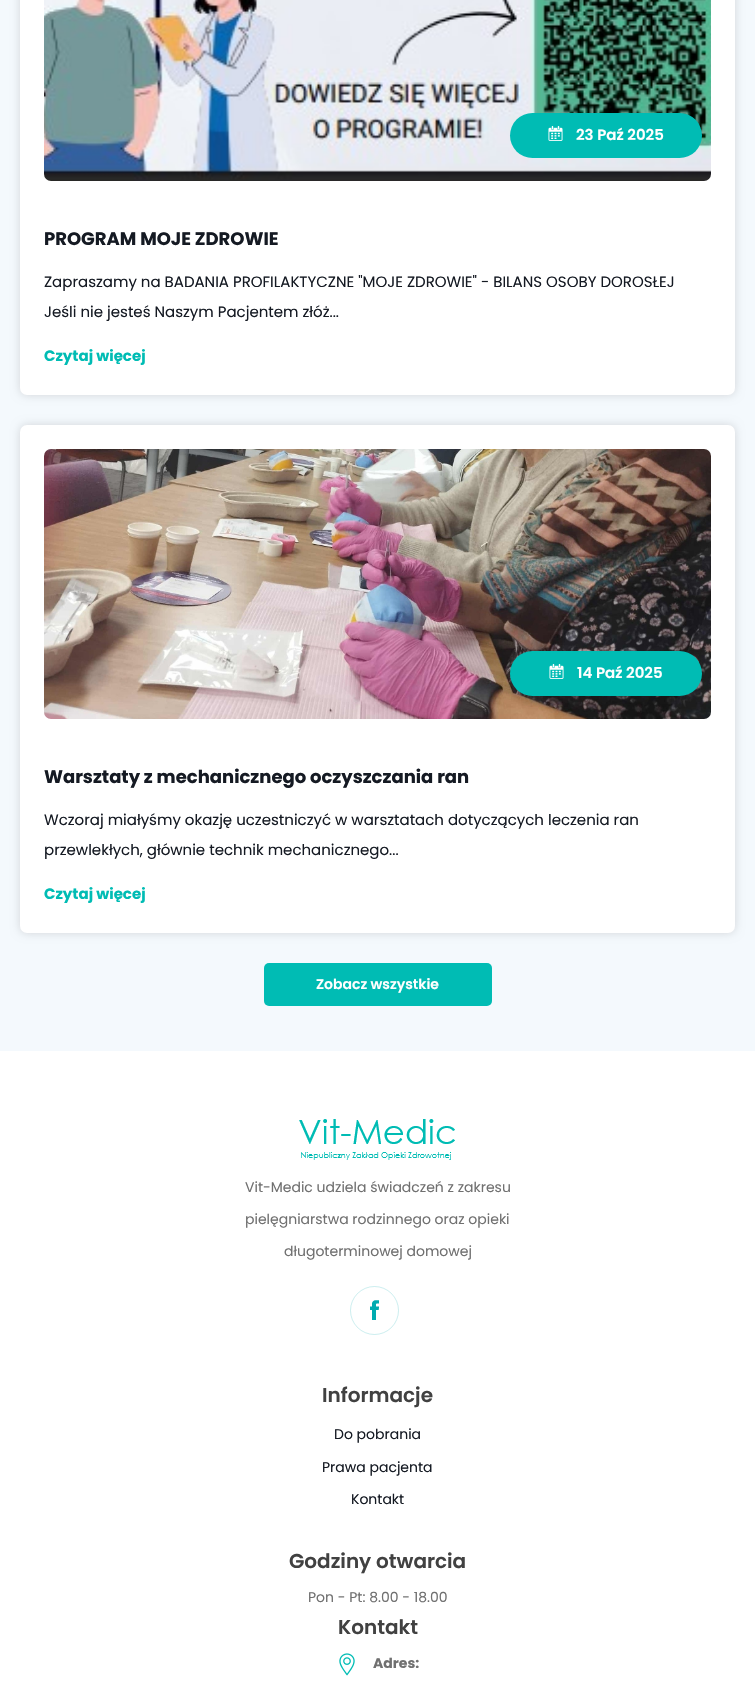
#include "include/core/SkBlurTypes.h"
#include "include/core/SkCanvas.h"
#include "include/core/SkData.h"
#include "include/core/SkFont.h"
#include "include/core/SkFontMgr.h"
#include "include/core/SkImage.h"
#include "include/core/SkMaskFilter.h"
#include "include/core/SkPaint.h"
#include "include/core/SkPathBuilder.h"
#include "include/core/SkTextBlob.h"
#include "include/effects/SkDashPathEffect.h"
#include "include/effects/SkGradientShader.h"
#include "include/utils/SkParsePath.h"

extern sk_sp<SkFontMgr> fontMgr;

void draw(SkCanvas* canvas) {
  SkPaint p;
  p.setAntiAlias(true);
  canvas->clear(SK_ColorWHITE);
  p.setColor(SkColorSetRGB(244, 249, 253));
  canvas->drawRect(SkRect::MakeLTRB(0, 0, 755, 1051), p);
  p.setColor(SkColorSetARGB(36, 0, 0, 0));
  p.setMaskFilter(SkMaskFilter::MakeBlur(kNormal_SkBlurStyle, 5));
  canvas->drawRoundRect(SkRect::MakeLTRB(20, -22, 735, 395), 7, 7, p);
  p.setMaskFilter(nullptr);
  p.setColor(SK_ColorWHITE);
  canvas->drawRoundRect(SkRect::MakeLTRB(20, -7, 735, 395), 7, 7, p);
  canvas->drawImageRect(SkImages::DeferredFromEncodedData(SkData::MakeFromFileName("images/1.png")), SkRect::MakeLTRB(44, 0, 711, 181), SkSamplingOptions());
  p.setColor(SkColorSetRGB(0, 188, 180));
  canvas->drawRoundRect(SkRect::MakeLTRB(510, 113, 702, 158), 22.5f, 22.5f, p);
  canvas->drawImageRect(SkImages::DeferredFromEncodedData(SkData::MakeFromFileName("images/2.png")), SkRect::MakeLTRB(548, 125, 563, 141), SkSamplingOptions());
  p.setColor(SkColorSetARGB(36, 0, 0, 0));
  p.setMaskFilter(SkMaskFilter::MakeBlur(kNormal_SkBlurStyle, 5));
  canvas->drawRoundRect(SkRect::MakeLTRB(20, 425, 735, 933), 7, 7, p);
  p.setMaskFilter(nullptr);
  p.setColor(SK_ColorWHITE);
  canvas->drawRoundRect(SkRect::MakeLTRB(20, 425, 735, 933), 7, 7, p);
  canvas->drawImageRect(SkImages::DeferredFromEncodedData(SkData::MakeFromFileName("images/3.png")), SkRect::MakeLTRB(44, 449, 711, 719), SkSamplingOptions());
  p.setColor(SkColorSetRGB(0, 188, 180));
  canvas->drawRoundRect(SkRect::MakeLTRB(510, 651, 702, 696), 22.5f, 22.5f, p);
  canvas->drawImageRect(SkImages::DeferredFromEncodedData(SkData::MakeFromFileName("images/2.png")), SkRect::MakeLTRB(549, 663, 564, 679), SkSamplingOptions());
  canvas->drawRoundRect(SkRect::MakeLTRB(264, 963, 492, 1006), 5, 5, p);
  canvas->drawImageRect(SkImages::DeferredFromEncodedData(SkData::MakeFromFileName("images/4.png")), SkRect::MakeLTRB(299, 1119, 455, 1160), SkSamplingOptions());
  canvas->drawImageRect(SkImages::DeferredFromEncodedData(SkData::MakeFromFileName("images/5.png")), SkRect::MakeLTRB(350, 1286, 399, 1335), SkSamplingOptions());
  canvas->drawImageRect(SkImages::DeferredFromEncodedData(SkData::MakeFromFileName("images/6.png")), SkRect::MakeLTRB(339, 1653, 355, 1676), SkSamplingOptions());
  SkFont font1(fontMgr->matchFamilyStyle("Poppins", SkFontStyle(600, SkFontStyle::kNormal_Width, SkFontStyle::kUpright_Slant)), 15);
  font1.setSubpixel(true);
  p.setColor(SK_ColorWHITE);
  canvas->drawString("23 Paź 2025", 576, 140, font1, p);
  SkFont font2(fontMgr->matchFamilyStyle("Poppins", SkFontStyle::Bold()), 18);
  font2.setSubpixel(true);
  p.setColor(SkColorSetRGB(21, 26, 35));
  canvas->drawString("PROGRAM MOJE ZDROWIE", 44, 245, font2, p);
  SkFont font3(fontMgr->matchFamilyStyle("Poppins", SkFontStyle::Normal()), 15);
  font3.setSubpixel(true);
  canvas->drawString("Zapraszamy na BADANIA PROFILAKTYCZNE \"MOJE ZDROWIE\" - BILANS OSOBY DOROSŁEJ", 44, 287, font3, p);
  canvas->drawString("Jeśli nie jesteś Naszym Pacjentem złóż...", 44, 317, font3, p);
  SkFont font4(fontMgr->matchFamilyStyle("Poppins", SkFontStyle::Bold()), 15);
  font4.setSubpixel(true);
  p.setColor(SkColorSetRGB(0, 188, 180));
  canvas->drawString("Czytaj więcej", 44, 361, font4, p);
  p.setColor(SK_ColorWHITE);
  canvas->drawString("14 Paź 2025", 577, 678, font1, p);
  p.setColor(SkColorSetRGB(21, 26, 35));
  canvas->drawString("Warsztaty z mechanicznego oczyszczania ran", 44, 783, font2, p);
  canvas->drawString("Wczoraj miałyśmy okazję uczestniczyć w warsztatach dotyczących leczenia ran", 44, 825, font3, p);
  canvas->drawString("przewlekłych, głównie technik mechanicznego...", 44, 855, font3, p);
  p.setColor(SkColorSetRGB(0, 188, 180));
  canvas->drawString("Czytaj więcej", 44, 899, font4, p);
  SkFont font5(fontMgr->matchFamilyStyle("Poppins", SkFontStyle(600, SkFontStyle::kNormal_Width, SkFontStyle::kUpright_Slant)), 14);
  font5.setSubpixel(true);
  p.setColor(SK_ColorWHITE);
  canvas->drawString("Zobacz wszystkie", 316, 989, font5, p);
  SkFont font6(fontMgr->matchFamilyStyle("Poppins", SkFontStyle::Normal()), 14);
  font6.setSubpixel(true);
  p.setColor(SkColorSetRGB(112, 112, 112));
  canvas->drawString("Vit-Medic udziela świadczeń z zakresu", 245, 1192, font6, p);
  canvas->drawString("pielęgniarstwa rodzinnego oraz opieki", 245, 1224, font6, p);
  canvas->drawString("długoterminowej domowej", 284, 1256, font6, p);
  SkFont font7(fontMgr->matchFamilyStyle("Poppins", SkFontStyle(600, SkFontStyle::kNormal_Width, SkFontStyle::kUpright_Slant)), 20);
  font7.setSubpixel(true);
  p.setColor(SkColorSetRGB(65, 65, 65));
  canvas->drawString("Informacje", 322, 1402, font7, p);
  p.setColor(SkColorSetRGB(21, 26, 35));
  canvas->drawString("Do pobrania", 334, 1439, font6, p);
  canvas->drawString("Prawa pacjenta", 322, 1472, font6, p);
  canvas->drawString("Kontakt", 351, 1504, font6, p);
  p.setColor(SkColorSetRGB(65, 65, 65));
  canvas->drawString("Godziny otwarcia", 289, 1568, font7, p);
  p.setColor(SkColorSetRGB(112, 112, 112));
  canvas->drawString("Pon - Pt: 8.00 - 18.00", 308, 1602, font6, p);
  p.setColor(SkColorSetRGB(65, 65, 65));
  canvas->drawString("Kontakt", 338, 1634, font7, p);
  SkFont font8(fontMgr->matchFamilyStyle("Poppins", SkFontStyle::Bold()), 14);
  font8.setSubpixel(true);
  p.setColor(SkColorSetRGB(112, 112, 112));
  canvas->drawString("Adres:", 373, 1668, font8, p);
}
